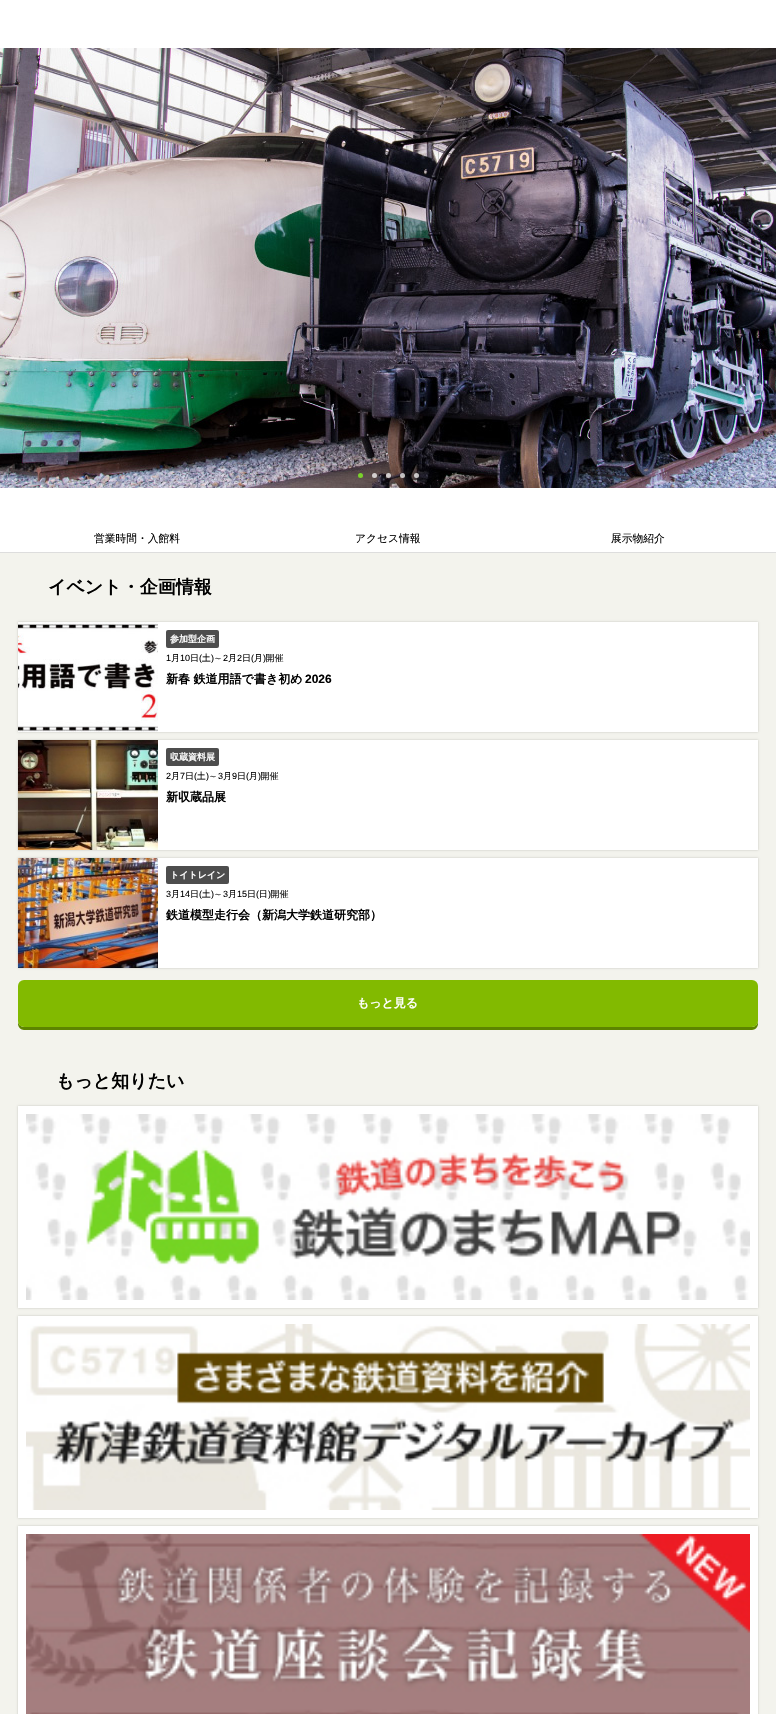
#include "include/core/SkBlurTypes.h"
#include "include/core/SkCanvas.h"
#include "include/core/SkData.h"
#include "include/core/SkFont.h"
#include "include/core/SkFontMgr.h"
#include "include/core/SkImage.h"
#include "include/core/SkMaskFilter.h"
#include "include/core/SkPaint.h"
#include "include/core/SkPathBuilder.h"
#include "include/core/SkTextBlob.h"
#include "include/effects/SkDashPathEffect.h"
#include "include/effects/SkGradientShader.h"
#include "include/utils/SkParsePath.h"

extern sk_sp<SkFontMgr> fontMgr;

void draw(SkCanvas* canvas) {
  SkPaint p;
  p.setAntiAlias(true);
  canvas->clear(SkColorSetRGB(243, 243, 237));
  p.setColor(SK_ColorWHITE);
  canvas->drawRect(SkRect::MakeLTRB(0, 0, 776, 48), p);
  canvas->drawImageRect(SkImages::DeferredFromEncodedData(SkData::MakeFromFileName("images/1.png")), SkRect::MakeLTRB(0, 48, 776, 488), SkSamplingOptions());
  p.setColor(SkColorSetRGB(122, 210, 43));
  canvas->drawCircle(360.5f, 475.5f, 2.5f, p);
  p.setColor(SkColorSetARGB(186, 255, 255, 255));
  canvas->drawCircle(374.5f, 475.5f, 2.5f, p);
  canvas->drawCircle(388.5f, 475.5f, 2.5f, p);
  canvas->drawCircle(402.5f, 475.5f, 2.5f, p);
  canvas->drawCircle(416.5f, 475.5f, 2.5f, p);
  p.setColor(SK_ColorWHITE);
  canvas->drawRect(SkRect::MakeLTRB(0, 488, 776, 552), p);
  p.setColor(SkColorSetRGB(221, 221, 221));
  canvas->drawRect(SkRect::MakeLTRB(0, 552, 776, 553), p);
  p.setColor(SkColorSetARGB(51, 0, 0, 0));
  p.setMaskFilter(SkMaskFilter::MakeBlur(kNormal_SkBlurStyle, 1));
  canvas->drawRect(SkRect::MakeLTRB(18, 622, 758, 732), p);
  p.setMaskFilter(nullptr);
  p.setColor(SK_ColorWHITE);
  canvas->drawRect(SkRect::MakeLTRB(158, 622, 758, 732), p);
  canvas->drawImageRect(SkImages::DeferredFromEncodedData(SkData::MakeFromFileName("images/2.png")), SkRect::MakeLTRB(18, 622, 158, 732), SkSamplingOptions());
  p.setColor(SkColorSetRGB(77, 77, 77));
  canvas->drawRoundRect(SkRect::MakeLTRB(166, 630, 219, 648), 2, 2, p);
  p.setColor(SkColorSetARGB(51, 0, 0, 0));
  p.setMaskFilter(SkMaskFilter::MakeBlur(kNormal_SkBlurStyle, 1));
  canvas->drawRect(SkRect::MakeLTRB(18, 740, 758, 850), p);
  p.setMaskFilter(nullptr);
  p.setColor(SK_ColorWHITE);
  canvas->drawRect(SkRect::MakeLTRB(158, 740, 758, 850), p);
  canvas->drawImageRect(SkImages::DeferredFromEncodedData(SkData::MakeFromFileName("images/3.png")), SkRect::MakeLTRB(18, 740, 158, 850), SkSamplingOptions());
  p.setColor(SkColorSetRGB(77, 77, 77));
  canvas->drawRoundRect(SkRect::MakeLTRB(166, 748, 219, 766), 2, 2, p);
  p.setColor(SkColorSetARGB(51, 0, 0, 0));
  p.setMaskFilter(SkMaskFilter::MakeBlur(kNormal_SkBlurStyle, 1));
  canvas->drawRect(SkRect::MakeLTRB(18, 858, 758, 968), p);
  p.setMaskFilter(nullptr);
  p.setColor(SK_ColorWHITE);
  canvas->drawRect(SkRect::MakeLTRB(158, 858, 758, 968), p);
  canvas->drawImageRect(SkImages::DeferredFromEncodedData(SkData::MakeFromFileName("images/4.png")), SkRect::MakeLTRB(18, 858, 158, 968), SkSamplingOptions());
  p.setColor(SkColorSetRGB(77, 77, 77));
  canvas->drawRoundRect(SkRect::MakeLTRB(166, 866, 229, 884), 2, 2, p);
  p.setColor(SkColorSetRGB(93, 133, 0));
  canvas->drawPath(SkPathBuilder().moveTo(18, 1021).lineTo(18, 1024).cubicTo(18, 1027, 21, 1030, 24, 1030).lineTo(752, 1030).cubicTo(755, 1030, 758, 1027, 758, 1024).lineTo(758, 1021).cubicTo(758, 1024, 755, 1027, 752, 1027).lineTo(24, 1027).cubicTo(21, 1027, 18, 1024, 18, 1021).close().detach(), p);
  p.setColor(SkColorSetRGB(130, 186, 0));
  canvas->drawRoundRect(SkRect::MakeLTRB(18, 980, 758, 1027), 6, 6, p);
  p.setColor(SkColorSetARGB(51, 0, 0, 0));
  p.setMaskFilter(SkMaskFilter::MakeBlur(kNormal_SkBlurStyle, 1));
  canvas->drawRect(SkRect::MakeLTRB(18, 1106, 758, 1308), p);
  p.setMaskFilter(nullptr);
  p.setColor(SK_ColorWHITE);
  canvas->drawRect(SkRect::MakeLTRB(18, 1106, 758, 1308), p);
  canvas->drawImageRect(SkImages::DeferredFromEncodedData(SkData::MakeFromFileName("images/5.png")), SkRect::MakeLTRB(26, 1114, 750, 1300), SkSamplingOptions());
  p.setColor(SkColorSetARGB(51, 0, 0, 0));
  p.setMaskFilter(SkMaskFilter::MakeBlur(kNormal_SkBlurStyle, 1));
  canvas->drawRect(SkRect::MakeLTRB(18, 1316, 758, 1518), p);
  p.setMaskFilter(nullptr);
  p.setColor(SK_ColorWHITE);
  canvas->drawRect(SkRect::MakeLTRB(18, 1316, 758, 1518), p);
  canvas->drawImageRect(SkImages::DeferredFromEncodedData(SkData::MakeFromFileName("images/6.png")), SkRect::MakeLTRB(26, 1324, 750, 1510), SkSamplingOptions());
  p.setColor(SkColorSetARGB(51, 0, 0, 0));
  p.setMaskFilter(SkMaskFilter::MakeBlur(kNormal_SkBlurStyle, 1));
  canvas->drawRect(SkRect::MakeLTRB(18, 1526, 758, 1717), p);
  p.setMaskFilter(nullptr);
  p.setColor(SK_ColorWHITE);
  canvas->drawRect(SkRect::MakeLTRB(18, 1526, 758, 1714), p);
  canvas->drawImageRect(SkImages::DeferredFromEncodedData(SkData::MakeFromFileName("images/7.png")), SkRect::MakeLTRB(26, 1534, 750, 1714), SkSamplingOptions());
  SkFont font1(fontMgr->matchFamilyStyle("WenQuanYi Zen Hei", SkFontStyle(500, SkFontStyle::kNormal_Width, SkFontStyle::kUpright_Slant)), 10.75f);
  font1.setSubpixel(true);
  p.setColor(SK_ColorBLACK);
  canvas->drawString("営業時間・入館料", 94, 542, font1, p);
  canvas->drawString("アクセス情報", 355, 542, font1, p);
  canvas->drawString("展示物紹介", 611, 542, font1, p);
  SkFont font2(fontMgr->matchFamilyStyle("WenQuanYi Zen Hei", SkFontStyle::Bold()), 18);
  font2.setSubpixel(true);
  canvas->drawString("イベント・企画情報", 48, 593, font2, p);
  SkFont font3(fontMgr->matchFamilyStyle("WenQuanYi Zen Hei", SkFontStyle::Bold()), 9);
  font3.setSubpixel(true);
  p.setColor(SK_ColorWHITE);
  canvas->drawString("参加型企画", 170, 642, font3, p);
  SkFont font4(fontMgr->matchFamilyStyle("Liberation Sans", SkFontStyle::Normal()), 9);
  font4.setSubpixel(true);
  p.setColor(SK_ColorBLACK);
  canvas->drawString("1", 166, 661, font4, p);
  SkFont font5(fontMgr->matchFamilyStyle("WenQuanYi Zen Hei", SkFontStyle(500, SkFontStyle::kNormal_Width, SkFontStyle::kUpright_Slant)), 9);
  font5.setSubpixel(true);
  canvas->drawString("月", 171, 661, font5, p);
  canvas->drawString("10", 180, 661, font4, p);
  canvas->drawString("日 土 ～", 190, 661, font5, p);
  canvas->drawString("日 月 開催", 242, 661, font5, p);
  canvas->drawString("(", 199, 661, font4, p);
  canvas->drawString(")", 211, 661, font4, p);
  canvas->drawString("2", 223, 661, font4, p);
  canvas->drawString("月", 228, 661, font5, p);
  canvas->drawString("2", 237, 661, font4, p);
  canvas->drawString("(", 251, 661, font4, p);
  canvas->drawString(")", 263, 661, font4, p);
  SkFont font6(fontMgr->matchFamilyStyle("WenQuanYi Zen Hei", SkFontStyle::Bold()), 12);
  font6.setSubpixel(true);
  canvas->drawString("新春 鉄道用語で書き初め", 166, 683, font6, p);
  SkFont font7(fontMgr->matchFamilyStyle("Liberation Sans", SkFontStyle::Bold()), 12);
  font7.setSubpixel(true);
  canvas->drawString("2026", 305, 683, font7, p);
  p.setColor(SK_ColorWHITE);
  canvas->drawString("収蔵資料展", 170, 760, font3, p);
  p.setColor(SK_ColorBLACK);
  canvas->drawString("2", 166, 779, font4, p);
  canvas->drawString("月", 171, 779, font5, p);
  canvas->drawString("7", 180, 779, font4, p);
  canvas->drawString("日 土 ～", 185, 779, font5, p);
  canvas->drawString("日 月 開催", 237, 779, font5, p);
  canvas->drawString("(", 194, 779, font4, p);
  canvas->drawString(")", 206, 779, font4, p);
  canvas->drawString("3", 218, 779, font4, p);
  canvas->drawString("月", 223, 779, font5, p);
  canvas->drawString("9", 232, 779, font4, p);
  canvas->drawString("(", 246, 779, font4, p);
  canvas->drawString(")", 258, 779, font4, p);
  canvas->drawString("新収蔵品展", 166, 801, font6, p);
  p.setColor(SK_ColorWHITE);
  canvas->drawString("トイトレイン", 170, 878, font3, p);
  p.setColor(SK_ColorBLACK);
  canvas->drawString("3", 166, 897, font4, p);
  canvas->drawString("月", 171, 897, font5, p);
  canvas->drawString("14", 180, 897, font4, p);
  canvas->drawString("日 土 ～", 190, 897, font5, p);
  canvas->drawString("日 日 開催", 247, 897, font5, p);
  canvas->drawString("(", 199, 897, font4, p);
  canvas->drawString(")", 211, 897, font4, p);
  canvas->drawString("3", 223, 897, font4, p);
  canvas->drawString("月", 228, 897, font5, p);
  canvas->drawString("15", 237, 897, font4, p);
  canvas->drawString("(", 256, 897, font4, p);
  canvas->drawString(")", 268, 897, font4, p);
  canvas->drawString("鉄道模型走行会（新潟大学鉄道研究部）", 166, 919, font6, p);
  p.setColor(SK_ColorWHITE);
  canvas->drawString("もっと見る", 357, 1007, font6, p);
  p.setColor(SK_ColorBLACK);
  canvas->drawString("もっと知りたい", 56, 1087, font2, p);
}
